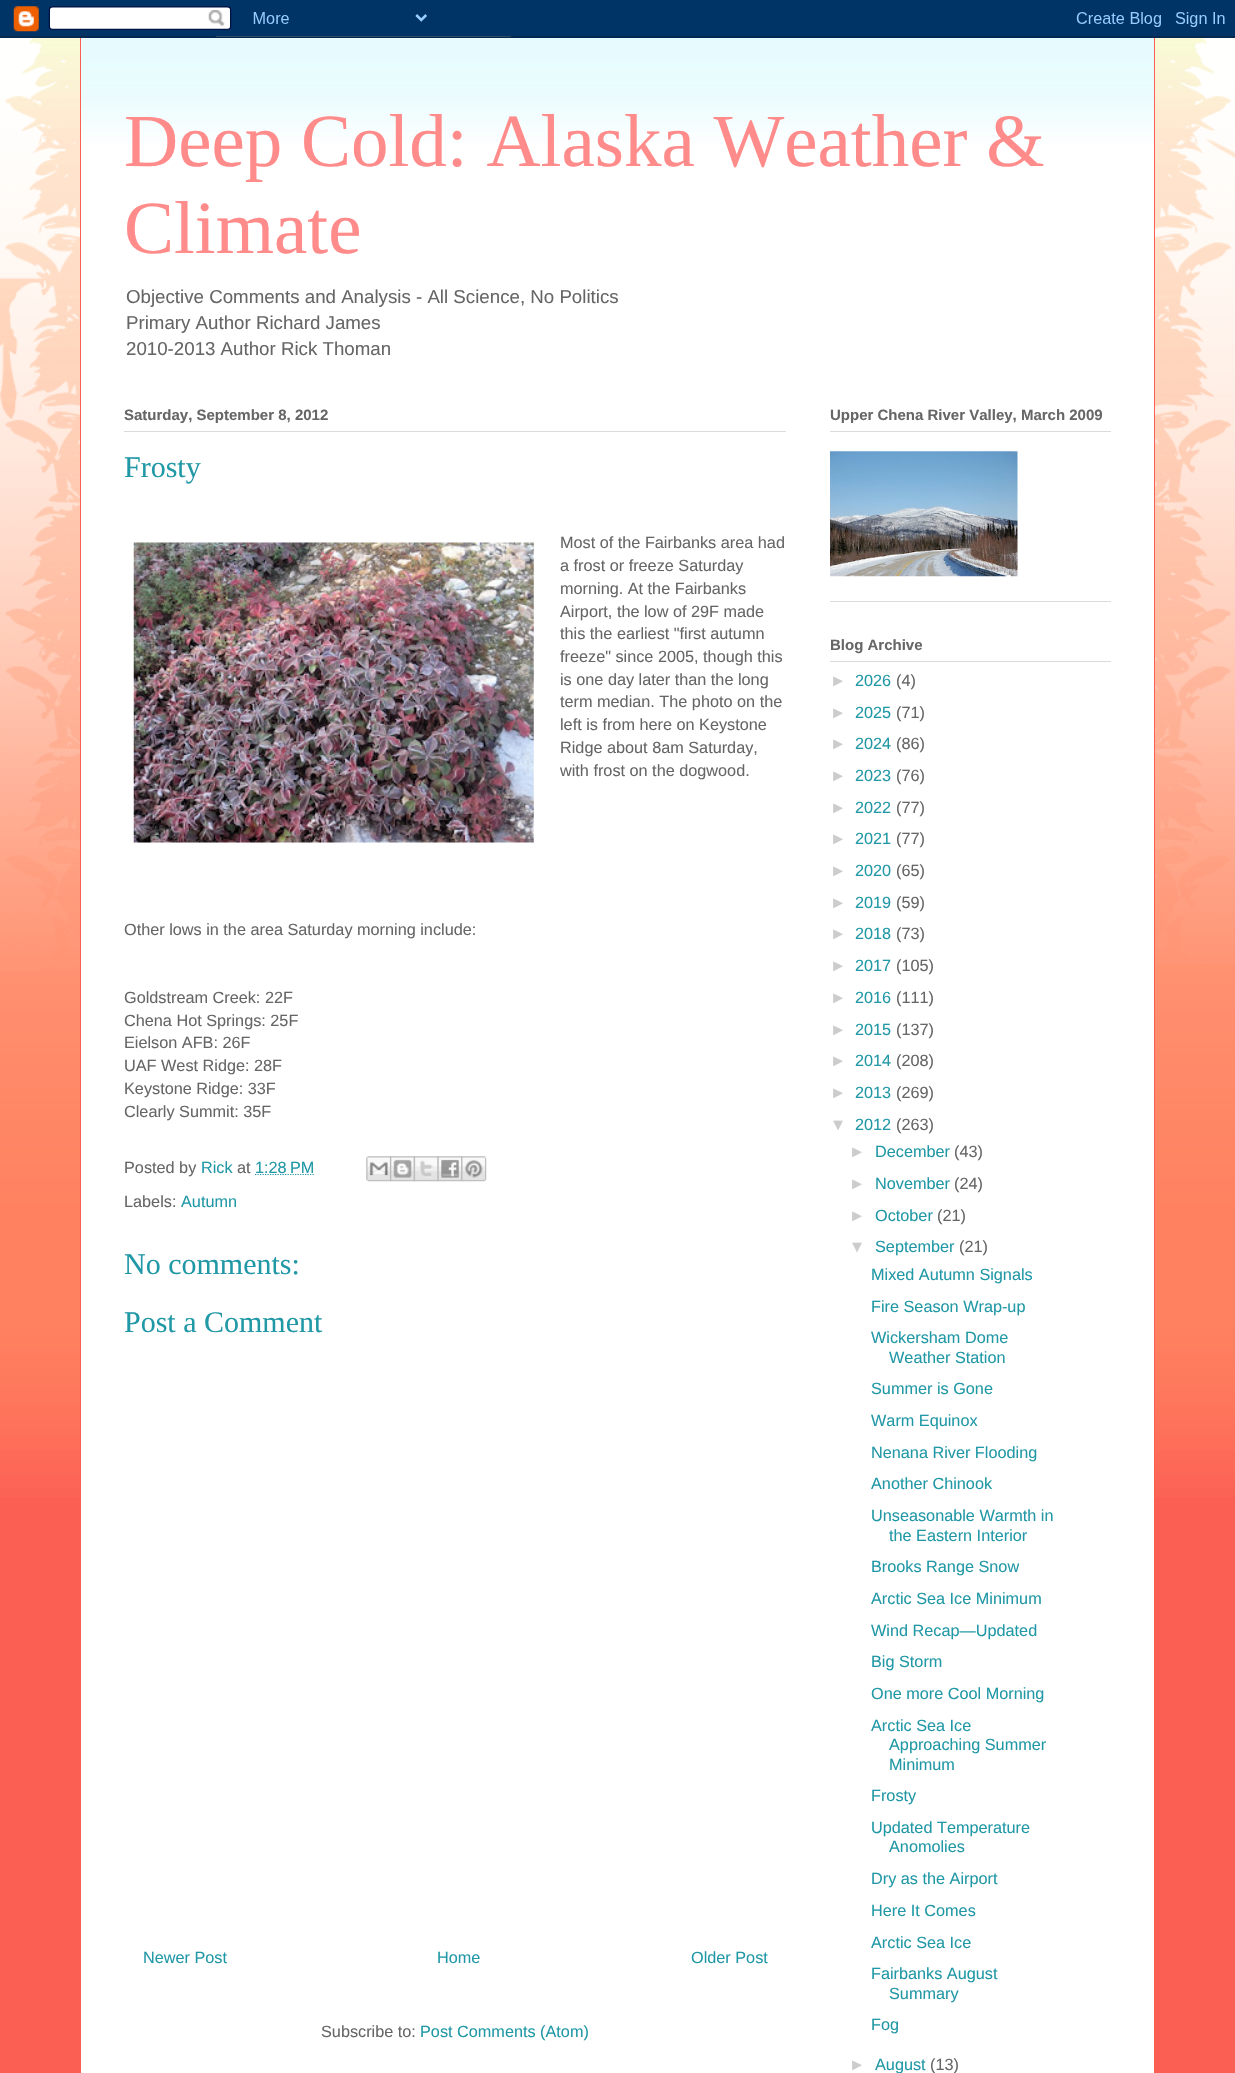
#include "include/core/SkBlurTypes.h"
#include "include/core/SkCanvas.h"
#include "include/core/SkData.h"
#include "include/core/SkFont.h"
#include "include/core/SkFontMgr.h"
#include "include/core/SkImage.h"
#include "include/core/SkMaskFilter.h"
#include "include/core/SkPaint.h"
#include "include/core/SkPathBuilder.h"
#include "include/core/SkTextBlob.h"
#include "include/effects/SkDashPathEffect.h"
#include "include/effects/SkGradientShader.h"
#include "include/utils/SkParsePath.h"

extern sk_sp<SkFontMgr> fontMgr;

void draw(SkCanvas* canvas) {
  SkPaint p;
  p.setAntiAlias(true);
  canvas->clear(SkColorSetRGB(251, 94, 83));
  canvas->drawImageRect(SkImages::DeferredFromEncodedData(SkData::MakeFromFileName("images/1.png")), SkRect::MakeLTRB(0, 36, 1235, 1497), SkSamplingOptions());
  canvas->drawImageRect(SkImages::DeferredFromEncodedData(SkData::MakeFromFileName("images/2.png")), SkRect::MakeLTRB(0, 0, 1235, 38), SkSamplingOptions());
  canvas->drawImageRect(SkImages::DeferredFromEncodedData(SkData::MakeFromFileName("images/3.png")), SkRect::MakeLTRB(0, 38, 80, 971), SkSamplingOptions());
  p.setColor(SK_ColorWHITE);
  canvas->drawRect(SkRect::MakeLTRB(81, 38, 1154, 2073), p);
  canvas->drawImageRect(SkImages::DeferredFromEncodedData(SkData::MakeFromFileName("images/4.png")), SkRect::MakeLTRB(81, 38, 1154, 143), SkSamplingOptions());
  p.setColor(SkColorSetRGB(251, 94, 83));
  canvas->drawRect(SkRect::MakeLTRB(1154, 38, 1155, 1497), p);
  canvas->drawRect(SkRect::MakeLTRB(80, 38, 81, 1497), p);
  canvas->drawImageRect(SkImages::DeferredFromEncodedData(SkData::MakeFromFileName("images/5.png")), SkRect::MakeLTRB(1155, 38, 1235, 964), SkSamplingOptions());
  p.setColor(SkColorSetRGB(219, 219, 219));
  canvas->drawRect(SkRect::MakeLTRB(124, 431, 786, 432), p);
  canvas->drawImageRect(SkImages::DeferredFromEncodedData(SkData::MakeFromFileName("images/6.png")), SkRect::MakeLTRB(133, 542, 534, 843), SkSamplingOptions());
  p.setStyle(SkPaint::kStroke_Style);
  p.setStrokeWidth(1.2f);
  p.setColor(SkColorSetRGB(33, 152, 166));
  p.setPathEffect(SkDashPathEffect::Make({{1.25f, 1.25f}}, 0));
  canvas->drawPath(SkPathBuilder().moveTo(255, 1174.5f).lineTo(314, 1174.5f).detach(), p);
  p.setPathEffect(nullptr);
  canvas->drawImageRect(SkImages::DeferredFromEncodedData(SkData::MakeFromFileName("images/7.png")), SkRect::MakeLTRB(366, 1156, 392, 1182), SkSamplingOptions());
  canvas->drawImageRect(SkImages::DeferredFromEncodedData(SkData::MakeFromFileName("images/8.png")), SkRect::MakeLTRB(390, 1156, 415, 1182), SkSamplingOptions());
  canvas->drawImageRect(SkImages::DeferredFromEncodedData(SkData::MakeFromFileName("images/9.png")), SkRect::MakeLTRB(413, 1156, 439, 1182), SkSamplingOptions());
  canvas->drawImageRect(SkImages::DeferredFromEncodedData(SkData::MakeFromFileName("images/10.png")), SkRect::MakeLTRB(437, 1156, 463, 1182), SkSamplingOptions());
  canvas->drawImageRect(SkImages::DeferredFromEncodedData(SkData::MakeFromFileName("images/11.png")), SkRect::MakeLTRB(461, 1156, 487, 1182), SkSamplingOptions());
  p.setStyle(SkPaint::kFill_Style);
  p.setColor(SkColorSetRGB(219, 219, 219));
  canvas->drawRect(SkRect::MakeLTRB(830, 601, 1111, 602), p);
  canvas->drawRect(SkRect::MakeLTRB(830, 431, 1111, 432), p);
  canvas->drawImageRect(SkImages::DeferredFromEncodedData(SkData::MakeFromFileName("images/12.png")), SkRect::MakeLTRB(830, 451, 1018, 577), SkSamplingOptions());
  canvas->drawRect(SkRect::MakeLTRB(830, 661, 1111, 662), p);
  SkFont font1(fontMgr->matchFamilyStyle("Liberation Serif", SkFontStyle::Normal()), 75);
  font1.setSubpixel(true);
  p.setColor(SkColorSetRGB(255, 139, 139));
  canvas->drawString("Deep Cold: Alaska Weather &", 124, 166, font1, p);
  canvas->drawString("Climate", 124, 253, font1, p);
  SkFont font2(fontMgr->matchFamilyStyle("Liberation Sans", SkFontStyle::Normal()), 18.7f);
  font2.setSubpixel(true);
  p.setColor(SkColorSetRGB(102, 102, 102));
  canvas->drawString("Objective Comments and Analysis - All Science, No Politics", 126, 303, font2, p);
  canvas->drawString("Primary Author Richard James", 126, 329, font2, p);
  canvas->drawString("2010-2013 Author Rick Thoman", 126, 355, font2, p);
  SkFont font3(fontMgr->matchFamilyStyle("Liberation Sans", SkFontStyle::Bold()), 15);
  font3.setSubpixel(true);
  canvas->drawString("Saturday, September 8, 2012", 124, 420, font3, p);
  SkFont font4(fontMgr->matchFamilyStyle("Liberation Serif", SkFontStyle::Normal()), 30);
  font4.setSubpixel(true);
  p.setColor(SkColorSetRGB(33, 152, 166));
  canvas->drawString("Frosty", 124, 477, font4, p);
  SkFont font5(fontMgr->matchFamilyStyle("Liberation Sans", SkFontStyle::Normal()), 16.25f);
  font5.setSubpixel(true);
  p.setColor(SkColorSetRGB(102, 102, 102));
  canvas->drawString("Most of the Fairbanks area had", 560, 548, font5, p);
  canvas->drawString("a frost or freeze Saturday", 560, 571, font5, p);
  canvas->drawString("morning. At the Fairbanks", 560, 594, font5, p);
  canvas->drawString("Airport, the low of 29F made", 560, 617, font5, p);
  canvas->drawString("this the earliest \"first autumn", 560, 639, font5, p);
  canvas->drawString("freeze\" since 2005, though this", 560, 662, font5, p);
  canvas->drawString("is one day later than the long", 560, 685, font5, p);
  canvas->drawString("term median. The photo on the", 560, 707, font5, p);
  canvas->drawString("left is from here on Keystone", 560, 730, font5, p);
  canvas->drawString("Ridge about 8am Saturday,", 560, 753, font5, p);
  canvas->drawString("with frost on the dogwood.", 560, 776, font5, p);
  canvas->drawString("Other lows in the area Saturday morning include:", 124, 935, font5, p);
  canvas->drawString("Goldstream Creek: 22F", 124, 1003, font5, p);
  canvas->drawString("Chena Hot Springs: 25F", 124, 1026, font5, p);
  canvas->drawString("Eielson AFB: 26F", 124, 1048, font5, p);
  canvas->drawString("UAF West Ridge: 28F", 124, 1071, font5, p);
  canvas->drawString("Keystone Ridge: 33F", 124, 1094, font5, p);
  canvas->drawString("Clearly Summit: 35F", 124, 1117, font5, p);
  canvas->drawString("Posted by", 124, 1173, font5, p);
  p.setColor(SkColorSetRGB(33, 152, 166));
  canvas->drawString("Rick", 201, 1173, font5, p);
  p.setColor(SkColorSetRGB(102, 102, 102));
  canvas->drawString("at", 237, 1173, font5, p);
  p.setColor(SkColorSetRGB(33, 152, 166));
  canvas->drawString("1:28 PM", 255, 1173, font5, p);
  p.setColor(SkColorSetRGB(102, 102, 102));
  canvas->drawString("Labels:", 124, 1207, font5, p);
  p.setColor(SkColorSetRGB(33, 152, 166));
  canvas->drawString("Autumn", 181, 1207, font5, p);
  canvas->drawString("No comments:", 124, 1274, font4, p);
  canvas->drawString("Post a Comment", 124, 1332, font4, p);
  canvas->drawString("Newer Post", 143, 1963, font5, p);
  canvas->drawString("Home", 437, 1963, font5, p);
  canvas->drawString("Older Post", 691, 1963, font5, p);
  p.setColor(SkColorSetRGB(102, 102, 102));
  canvas->drawString("Subscribe to:", 321, 2037, font5, p);
  p.setColor(SkColorSetRGB(33, 152, 166));
  canvas->drawString("Post Comments (Atom)", 420, 2037, font5, p);
  p.setColor(SkColorSetRGB(102, 102, 102));
  canvas->drawString("Upper Chena River Valley, March 2009", 830, 420, font3, p);
  canvas->drawString("Blog Archive", 830, 650, font3, p);
  p.setColor(SkColorSetRGB(204, 204, 204));
  canvas->drawString("►", 830, 686, font5, p);
  p.setColor(SkColorSetRGB(33, 152, 166));
  canvas->drawString("2026", 855, 686, font5, p);
  p.setColor(SkColorSetRGB(102, 102, 102));
  canvas->drawString("(4)", 896, 686, font5, p);
  p.setColor(SkColorSetRGB(204, 204, 204));
  canvas->drawString("►", 830, 718, font5, p);
  p.setColor(SkColorSetRGB(33, 152, 166));
  canvas->drawString("2025", 855, 718, font5, p);
  p.setColor(SkColorSetRGB(102, 102, 102));
  canvas->drawString("(71)", 896, 718, font5, p);
  p.setColor(SkColorSetRGB(204, 204, 204));
  canvas->drawString("►", 830, 749, font5, p);
  p.setColor(SkColorSetRGB(33, 152, 166));
  canvas->drawString("2024", 855, 749, font5, p);
  p.setColor(SkColorSetRGB(102, 102, 102));
  canvas->drawString("(86)", 896, 749, font5, p);
  p.setColor(SkColorSetRGB(204, 204, 204));
  canvas->drawString("►", 830, 781, font5, p);
  p.setColor(SkColorSetRGB(33, 152, 166));
  canvas->drawString("2023", 855, 781, font5, p);
  p.setColor(SkColorSetRGB(102, 102, 102));
  canvas->drawString("(76)", 896, 781, font5, p);
  p.setColor(SkColorSetRGB(204, 204, 204));
  canvas->drawString("►", 830, 813, font5, p);
  p.setColor(SkColorSetRGB(33, 152, 166));
  canvas->drawString("2022", 855, 813, font5, p);
  p.setColor(SkColorSetRGB(102, 102, 102));
  canvas->drawString("(77)", 896, 813, font5, p);
  p.setColor(SkColorSetRGB(204, 204, 204));
  canvas->drawString("►", 830, 844, font5, p);
  p.setColor(SkColorSetRGB(33, 152, 166));
  canvas->drawString("2021", 855, 844, font5, p);
  p.setColor(SkColorSetRGB(102, 102, 102));
  canvas->drawString("(77)", 896, 844, font5, p);
  p.setColor(SkColorSetRGB(204, 204, 204));
  canvas->drawString("►", 830, 876, font5, p);
  p.setColor(SkColorSetRGB(33, 152, 166));
  canvas->drawString("2020", 855, 876, font5, p);
  p.setColor(SkColorSetRGB(102, 102, 102));
  canvas->drawString("(65)", 896, 876, font5, p);
  p.setColor(SkColorSetRGB(204, 204, 204));
  canvas->drawString("►", 830, 908, font5, p);
  p.setColor(SkColorSetRGB(33, 152, 166));
  canvas->drawString("2019", 855, 908, font5, p);
  p.setColor(SkColorSetRGB(102, 102, 102));
  canvas->drawString("(59)", 896, 908, font5, p);
  p.setColor(SkColorSetRGB(204, 204, 204));
  canvas->drawString("►", 830, 939, font5, p);
  p.setColor(SkColorSetRGB(33, 152, 166));
  canvas->drawString("2018", 855, 939, font5, p);
  p.setColor(SkColorSetRGB(102, 102, 102));
  canvas->drawString("(73)", 896, 939, font5, p);
  p.setColor(SkColorSetRGB(204, 204, 204));
  canvas->drawString("►", 830, 971, font5, p);
  p.setColor(SkColorSetRGB(33, 152, 166));
  canvas->drawString("2017", 855, 971, font5, p);
  p.setColor(SkColorSetRGB(102, 102, 102));
  canvas->drawString("(105)", 896, 971, font5, p);
  p.setColor(SkColorSetRGB(204, 204, 204));
  canvas->drawString("►", 830, 1003, font5, p);
  p.setColor(SkColorSetRGB(33, 152, 166));
  canvas->drawString("2016", 855, 1003, font5, p);
  p.setColor(SkColorSetRGB(102, 102, 102));
  canvas->drawString("(111)", 896, 1003, font5, p);
  p.setColor(SkColorSetRGB(204, 204, 204));
  canvas->drawString("►", 830, 1035, font5, p);
  p.setColor(SkColorSetRGB(33, 152, 166));
  canvas->drawString("2015", 855, 1035, font5, p);
  p.setColor(SkColorSetRGB(102, 102, 102));
  canvas->drawString("(137)", 896, 1035, font5, p);
  p.setColor(SkColorSetRGB(204, 204, 204));
  canvas->drawString("►", 830, 1066, font5, p);
  p.setColor(SkColorSetRGB(33, 152, 166));
  canvas->drawString("2014", 855, 1066, font5, p);
  p.setColor(SkColorSetRGB(102, 102, 102));
  canvas->drawString("(208)", 896, 1066, font5, p);
  p.setColor(SkColorSetRGB(204, 204, 204));
  canvas->drawString("►", 830, 1098, font5, p);
  p.setColor(SkColorSetRGB(33, 152, 166));
  canvas->drawString("2013", 855, 1098, font5, p);
  p.setColor(SkColorSetRGB(102, 102, 102));
  canvas->drawString("(269)", 896, 1098, font5, p);
  p.setColor(SkColorSetRGB(204, 204, 204));
  canvas->drawString("▼", 830, 1130, font5, p);
  p.setColor(SkColorSetRGB(33, 152, 166));
  canvas->drawString("2012", 855, 1130, font5, p);
  p.setColor(SkColorSetRGB(102, 102, 102));
  canvas->drawString("(263)", 896, 1130, font5, p);
  p.setColor(SkColorSetRGB(204, 204, 204));
  canvas->drawString("►", 849, 1157, font5, p);
  p.setColor(SkColorSetRGB(33, 152, 166));
  canvas->drawString("December", 875, 1157, font5, p);
  p.setColor(SkColorSetRGB(102, 102, 102));
  canvas->drawString("(43)", 954, 1157, font5, p);
  p.setColor(SkColorSetRGB(204, 204, 204));
  canvas->drawString("►", 849, 1189, font5, p);
  p.setColor(SkColorSetRGB(33, 152, 166));
  canvas->drawString("November", 875, 1189, font5, p);
  p.setColor(SkColorSetRGB(102, 102, 102));
  canvas->drawString("(24)", 954, 1189, font5, p);
  p.setColor(SkColorSetRGB(204, 204, 204));
  canvas->drawString("►", 849, 1221, font5, p);
  p.setColor(SkColorSetRGB(33, 152, 166));
  canvas->drawString("October", 875, 1221, font5, p);
  p.setColor(SkColorSetRGB(102, 102, 102));
  canvas->drawString("(21)", 937, 1221, font5, p);
  p.setColor(SkColorSetRGB(204, 204, 204));
  canvas->drawString("▼", 849, 1252, font5, p);
  p.setColor(SkColorSetRGB(33, 152, 166));
  canvas->drawString("September", 875, 1252, font5, p);
  p.setColor(SkColorSetRGB(102, 102, 102));
  canvas->drawString("(21)", 959, 1252, font5, p);
  p.setColor(SkColorSetRGB(33, 152, 166));
  canvas->drawString("Mixed Autumn Signals", 871, 1280, font5, p);
  canvas->drawString("Fire Season Wrap-up", 871, 1312, font5, p);
  canvas->drawString("Wickersham Dome", 871, 1343, font5, p);
  canvas->drawString("Weather Station", 889, 1363, font5, p);
  canvas->drawString("Summer is Gone", 871, 1394, font5, p);
  canvas->drawString("Warm Equinox", 871, 1426, font5, p);
  canvas->drawString("Nenana River Flooding", 871, 1458, font5, p);
  canvas->drawString("Another Chinook", 871, 1489, font5, p);
  canvas->drawString("Unseasonable Warmth in", 871, 1521, font5, p);
  canvas->drawString("the Eastern Interior", 889, 1541, font5, p);
  canvas->drawString("Brooks Range Snow", 871, 1572, font5, p);
  canvas->drawString("Arctic Sea Ice Minimum", 871, 1604, font5, p);
  canvas->drawString("Wind Recap—Updated", 871, 1636, font5, p);
  canvas->drawString("Big Storm", 871, 1667, font5, p);
  canvas->drawString("One more Cool Morning", 871, 1699, font5, p);
  canvas->drawString("Arctic Sea Ice", 871, 1731, font5, p);
  canvas->drawString("Approaching Summer", 889, 1750, font5, p);
  canvas->drawString("Minimum", 889, 1770, font5, p);
  canvas->drawString("Frosty", 871, 1801, font5, p);
  canvas->drawString("Updated Temperature", 871, 1833, font5, p);
  canvas->drawString("Anomolies", 889, 1852, font5, p);
  canvas->drawString("Dry as the Airport", 871, 1884, font5, p);
  canvas->drawString("Here It Comes", 871, 1916, font5, p);
  canvas->drawString("Arctic Sea Ice", 871, 1948, font5, p);
  canvas->drawString("Fairbanks August", 871, 1979, font5, p);
  canvas->drawString("Summary", 889, 1999, font5, p);
  canvas->drawString("Fog", 871, 2030, font5, p);
  p.setColor(SkColorSetRGB(204, 204, 204));
  canvas->drawString("►", 849, 2070, font5, p);
  p.setColor(SkColorSetRGB(33, 152, 166));
  canvas->drawString("August", 875, 2070, font5, p);
  p.setColor(SkColorSetRGB(102, 102, 102));
  canvas->drawString("(13)", 930, 2070, font5, p);
}
